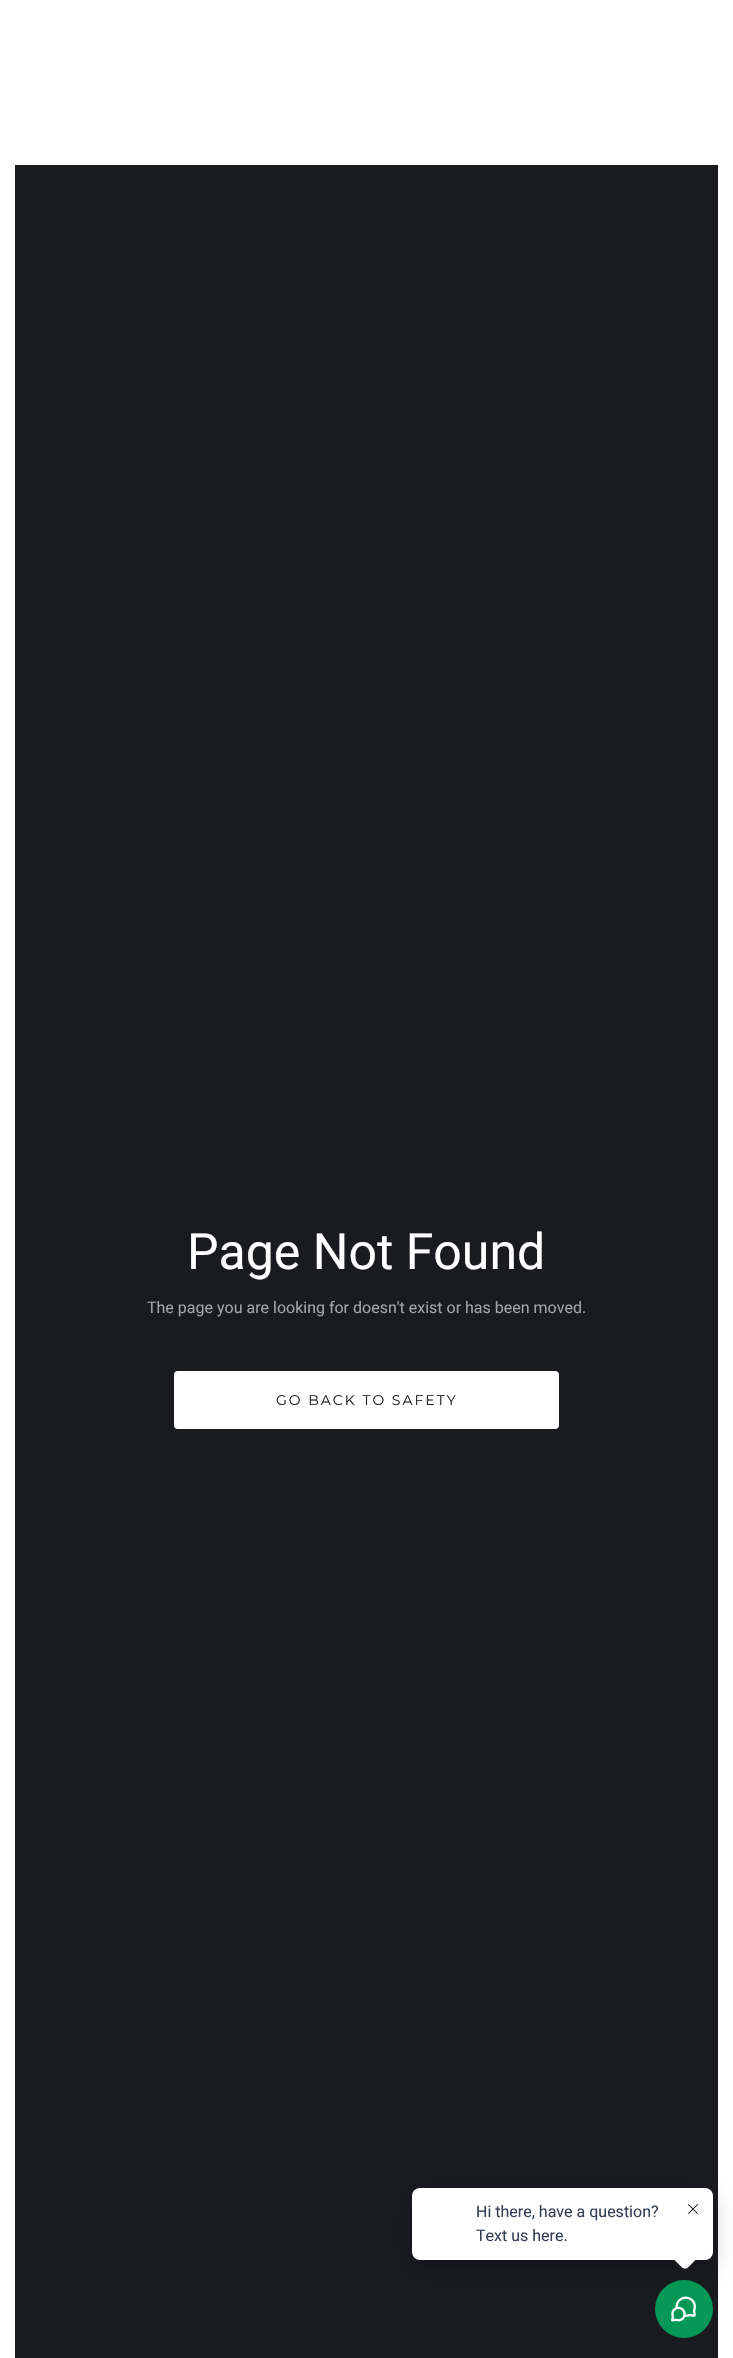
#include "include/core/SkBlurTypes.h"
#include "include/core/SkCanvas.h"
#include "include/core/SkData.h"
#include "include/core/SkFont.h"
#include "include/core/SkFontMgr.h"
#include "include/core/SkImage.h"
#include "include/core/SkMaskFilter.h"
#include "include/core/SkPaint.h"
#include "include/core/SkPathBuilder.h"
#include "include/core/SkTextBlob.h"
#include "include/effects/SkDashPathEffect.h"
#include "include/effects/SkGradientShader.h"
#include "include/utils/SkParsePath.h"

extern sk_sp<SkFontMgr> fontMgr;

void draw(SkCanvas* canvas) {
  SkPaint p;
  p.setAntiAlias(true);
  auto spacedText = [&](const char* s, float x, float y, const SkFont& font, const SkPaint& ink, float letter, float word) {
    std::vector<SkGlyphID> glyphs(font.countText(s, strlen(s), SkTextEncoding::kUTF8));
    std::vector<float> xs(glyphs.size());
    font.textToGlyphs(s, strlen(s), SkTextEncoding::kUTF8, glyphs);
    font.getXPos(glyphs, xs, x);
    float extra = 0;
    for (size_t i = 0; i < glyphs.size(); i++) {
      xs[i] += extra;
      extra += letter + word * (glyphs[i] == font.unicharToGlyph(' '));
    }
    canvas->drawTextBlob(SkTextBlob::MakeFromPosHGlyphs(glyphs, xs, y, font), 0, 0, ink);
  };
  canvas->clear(SK_ColorWHITE);
  p.setColor(SkColorSetRGB(26, 27, 31));
  canvas->drawRect(SkRect::MakeLTRB(15, 165, 718, 2358), p);
  p.setColor(SK_ColorWHITE);
  canvas->drawRoundRect(SkRect::MakeLTRB(174, 1371, 559, 1429), 4, 4, p);
  p.setColor(SkColorSetRGB(3, 152, 85));
  canvas->drawCircle(684, 2309, 29, p);
  canvas->drawImageRect(SkImages::DeferredFromEncodedData(SkData::MakeFromFileName("images/2.png")), SkRect::MakeLTRB(671, 2296, 696, 2322), SkSamplingOptions());
  p.setColor(SkColorSetARGB(61, 0, 0, 0));
  p.setMaskFilter(SkMaskFilter::MakeBlur(kNormal_SkBlurStyle, 10));
  canvas->drawRoundRect(SkRect::MakeLTRB(412, 2196, 713, 2268), 8, 8, p);
  p.setMaskFilter(nullptr);
  p.setColor(SK_ColorWHITE);
  canvas->drawRoundRect(SkRect::MakeLTRB(412, 2188, 713, 2260), 8, 8, p);
  canvas->drawPath(SkPathBuilder().moveTo(688, 2244.5f).lineTo(696.5f, 2253).cubicTo(698, 2254.5f, 698, 2257.5f, 696.5f, 2259).lineTo(688, 2267.5f).cubicTo(686.5f, 2269, 683.5f, 2269, 682, 2267.5f).lineTo(673.5f, 2259).cubicTo(672, 2257.5f, 672, 2254.5f, 673.5f, 2253).lineTo(682, 2244.5f).cubicTo(683.5f, 2243, 686.5f, 2243, 688, 2244.5f).close().detach(), p);
  canvas->drawImageRect(SkImages::DeferredFromEncodedData(SkData::MakeFromFileName("images/1.png")), SkRect::MakeLTRB(688, 2204, 698, 2214), SkSamplingOptions());
  SkFont font1(fontMgr->matchFamilyStyle("Roboto", SkFontStyle::Normal()), 50);
  font1.setSubpixel(true);
  canvas->drawString("Page Not Found", 187, 1269, font1, p);
  SkFont font2(fontMgr->matchFamilyStyle("Roboto", SkFontStyle::Normal()), 16);
  font2.setSubpixel(true);
  p.setColor(SkColorSetRGB(163, 164, 165));
  canvas->drawString("The page you are looking for doesn't exist or has been moved.", 147, 1313, font2, p);
  SkFont font3(fontMgr->matchFamilyStyle("Montserrat", SkFontStyle::Normal()), 14);
  font3.setSubpixel(true);
  p.setColor(SkColorSetRGB(32, 32, 32));
  spacedText("GO BACK TO SAFETY", 276, 1405, font3, p, 2, 0);
  p.setColor(SkColorSetRGB(52, 64, 84));
  canvas->drawString("Hi there, have a question?", 476, 2217, font2, p);
  canvas->drawString("Text us here.", 476, 2241, font2, p);
}
